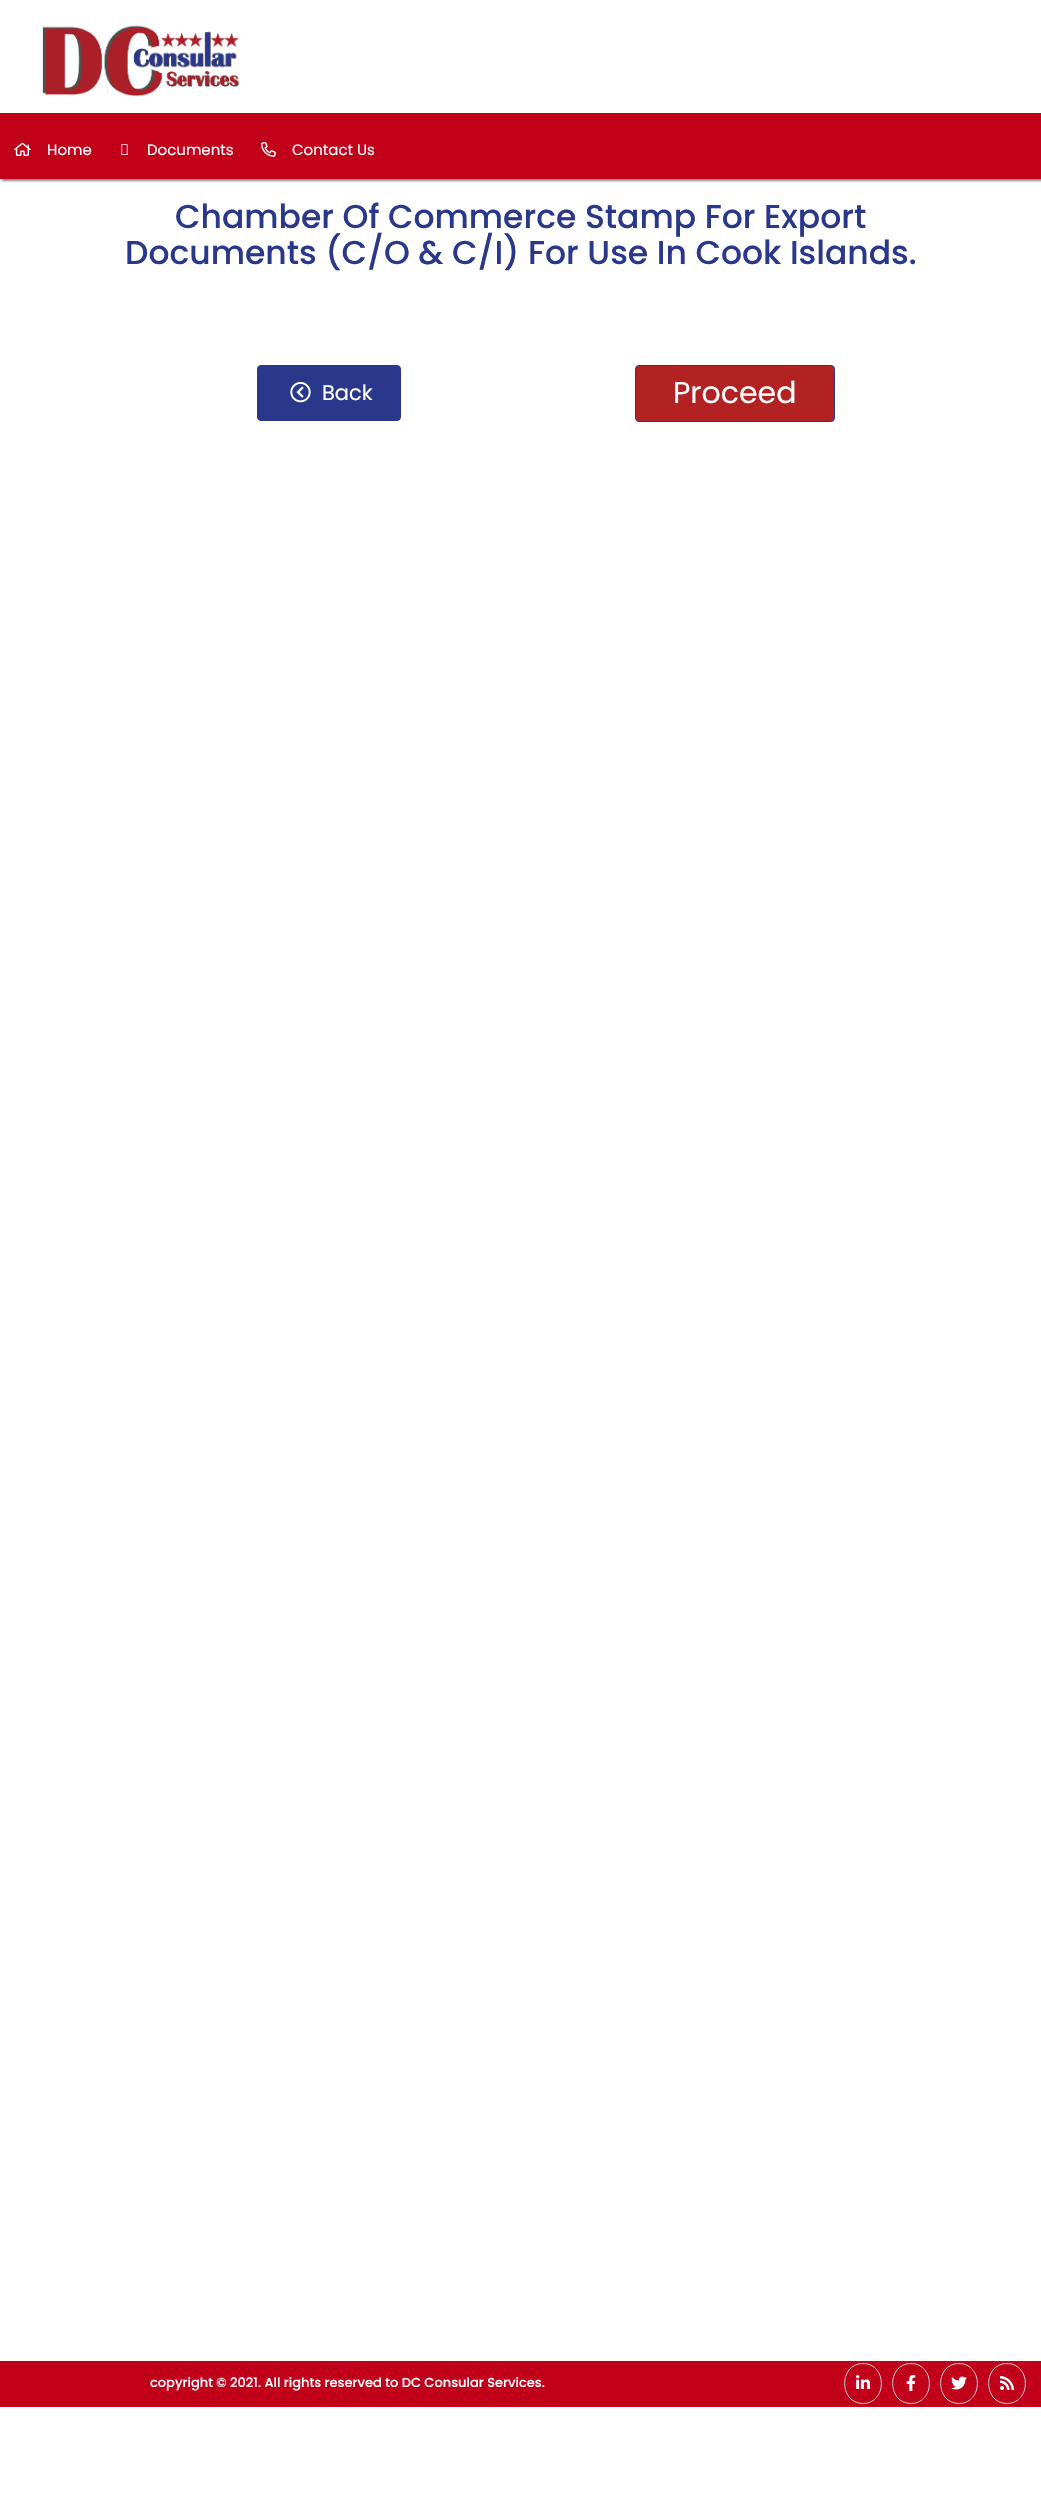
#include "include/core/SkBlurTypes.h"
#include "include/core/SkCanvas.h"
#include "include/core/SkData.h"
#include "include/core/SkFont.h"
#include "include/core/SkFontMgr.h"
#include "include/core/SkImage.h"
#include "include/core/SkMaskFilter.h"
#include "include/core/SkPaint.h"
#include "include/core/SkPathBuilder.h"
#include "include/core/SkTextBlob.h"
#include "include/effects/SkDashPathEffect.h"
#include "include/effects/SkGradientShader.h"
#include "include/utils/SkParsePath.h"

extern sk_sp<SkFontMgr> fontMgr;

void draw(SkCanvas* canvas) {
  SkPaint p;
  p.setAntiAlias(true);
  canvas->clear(SK_ColorWHITE);
  canvas->drawImageRect(SkImages::DeferredFromEncodedData(SkData::MakeFromFileName("images/1.png")), SkRect::MakeLTRB(42, 25, 240, 97), SkSamplingOptions());
  p.setColor(SkColorSetRGB(137, 134, 134));
  p.setMaskFilter(SkMaskFilter::MakeBlur(kNormal_SkBlurStyle, 1));
  canvas->drawRect(SkRect::MakeLTRB(2, 115, 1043, 181), p);
  p.setMaskFilter(nullptr);
  p.setColor(SkColorSetRGB(193, 0, 25));
  canvas->drawRect(SkRect::MakeLTRB(0, 113, 1041, 179), p);
  canvas->drawImageRect(SkImages::DeferredFromEncodedData(SkData::MakeFromFileName("images/2.png")), SkRect::MakeLTRB(14, 142, 31, 156), SkSamplingOptions());
  canvas->drawImageRect(SkImages::DeferredFromEncodedData(SkData::MakeFromFileName("images/3.png")), SkRect::MakeLTRB(121, 144, 128, 155), SkSamplingOptions());
  canvas->drawImageRect(SkImages::DeferredFromEncodedData(SkData::MakeFromFileName("images/4.png")), SkRect::MakeLTRB(261, 141, 276, 157), SkSamplingOptions());
  p.setColor(SkColorSetRGB(42, 56, 140));
  canvas->drawRoundRect(SkRect::MakeLTRB(257.5f, 365.5f, 400.5f, 420.5f), 3.5f, 3.5f, p);
  p.setStyle(SkPaint::kStroke_Style);
  p.setStrokeWidth(1);
  canvas->drawRoundRect(SkRect::MakeLTRB(257.5f, 365.5f, 400.5f, 420.5f), 3.5f, 3.5f, p);
  canvas->drawImageRect(SkImages::DeferredFromEncodedData(SkData::MakeFromFileName("images/5.png")), SkRect::MakeLTRB(290, 382, 311, 403), SkSamplingOptions());
  p.setStyle(SkPaint::kFill_Style);
  p.setColor(SkColorSetRGB(178, 34, 34));
  canvas->drawRoundRect(SkRect::MakeLTRB(635.5f, 365.5f, 834.5f, 421.5f), 3.5f, 3.5f, p);
  p.setStyle(SkPaint::kStroke_Style);
  p.setColor(SkColorSetRGB(42, 56, 140));
  canvas->drawRoundRect(SkRect::MakeLTRB(635.5f, 365.5f, 834.5f, 421.5f), 3.5f, 3.5f, p);
  p.setStyle(SkPaint::kFill_Style);
  p.setColor(SkColorSetRGB(193, 0, 25));
  canvas->drawRect(SkRect::MakeLTRB(0, 2361, 1041, 2407), p);
  p.setStyle(SkPaint::kStroke_Style);
  p.setColor(SkColorSetRGB(204, 204, 204));
  canvas->drawPath(SkPathBuilder().moveTo(863, 2363.5f).cubicTo(887.5f, 2363.5f, 887.5f, 2403.5f, 863, 2403.5f).cubicTo(838.5f, 2403.5f, 838.5f, 2363.5f, 863, 2363.5f).close().detach(), p);
  canvas->drawImageRect(SkImages::DeferredFromEncodedData(SkData::MakeFromFileName("images/6.png")), SkRect::MakeLTRB(856, 2375, 870, 2389), SkSamplingOptions());
  canvas->drawPath(SkPathBuilder().moveTo(911, 2363.5f).cubicTo(935.5f, 2363.5f, 935.5f, 2403.5f, 911, 2403.5f).cubicTo(886.5f, 2403.5f, 886.5f, 2363.5f, 911, 2363.5f).close().detach(), p);
  canvas->drawImageRect(SkImages::DeferredFromEncodedData(SkData::MakeFromFileName("images/7.png")), SkRect::MakeLTRB(906, 2375, 916, 2391), SkSamplingOptions());
  canvas->drawPath(SkPathBuilder().moveTo(959, 2363.5f).cubicTo(983.5f, 2363.5f, 983.5f, 2403.5f, 959, 2403.5f).cubicTo(934.5f, 2403.5f, 934.5f, 2363.5f, 959, 2363.5f).close().detach(), p);
  canvas->drawImageRect(SkImages::DeferredFromEncodedData(SkData::MakeFromFileName("images/8.png")), SkRect::MakeLTRB(951, 2376, 967, 2390), SkSamplingOptions());
  canvas->drawPath(SkPathBuilder().moveTo(1007, 2363.5f).cubicTo(1031.5f, 2363.5f, 1031.5f, 2403.5f, 1007, 2403.5f).cubicTo(982.5f, 2403.5f, 982.5f, 2363.5f, 1007, 2363.5f).close().detach(), p);
  canvas->drawImageRect(SkImages::DeferredFromEncodedData(SkData::MakeFromFileName("images/9.png")), SkRect::MakeLTRB(1000, 2376, 1014, 2390), SkSamplingOptions());
  SkFont font1(fontMgr->matchFamilyStyle("Poppins", SkFontStyle::Normal()), 15);
  font1.setSubpixel(true);
  p.setStyle(SkPaint::kFill_Style);
  p.setColor(SK_ColorWHITE);
  canvas->drawString("Home", 47, 155, font1, p);
  canvas->drawString("Documents", 147, 155, font1, p);
  canvas->drawString("Contact Us", 292, 155, font1, p);
  SkFont font2(fontMgr->matchFamilyStyle("Poppins", SkFontStyle(500, SkFontStyle::kNormal_Width, SkFontStyle::kUpright_Slant)), 33);
  font2.setSubpixel(true);
  p.setColor(SkColorSetRGB(42, 56, 140));
  canvas->drawString("Chamber Of Commerce Stamp For Export", 175, 228, font2, p);
  canvas->drawString("Documents (C/O & C/I) For Use In Cook Islands.", 125, 264, font2, p);
  SkFont font3(fontMgr->matchFamilyStyle("Poppins", SkFontStyle::Normal()), 21);
  font3.setSubpixel(true);
  p.setColor(SK_ColorWHITE);
  canvas->drawString("Back", 322, 400, font3, p);
  SkFont font4(fontMgr->matchFamilyStyle("Poppins", SkFontStyle::Normal()), 30);
  font4.setSubpixel(true);
  canvas->drawString("Proceed", 673, 403, font4, p);
  SkFont font5(fontMgr->matchFamilyStyle("Poppins", SkFontStyle(500, SkFontStyle::kNormal_Width, SkFontStyle::kUpright_Slant)), 13);
  font5.setSubpixel(true);
  canvas->drawString("copyright © 2021. All rights reserved to DC Consular Services.", 150, 2387, font5, p);
}
